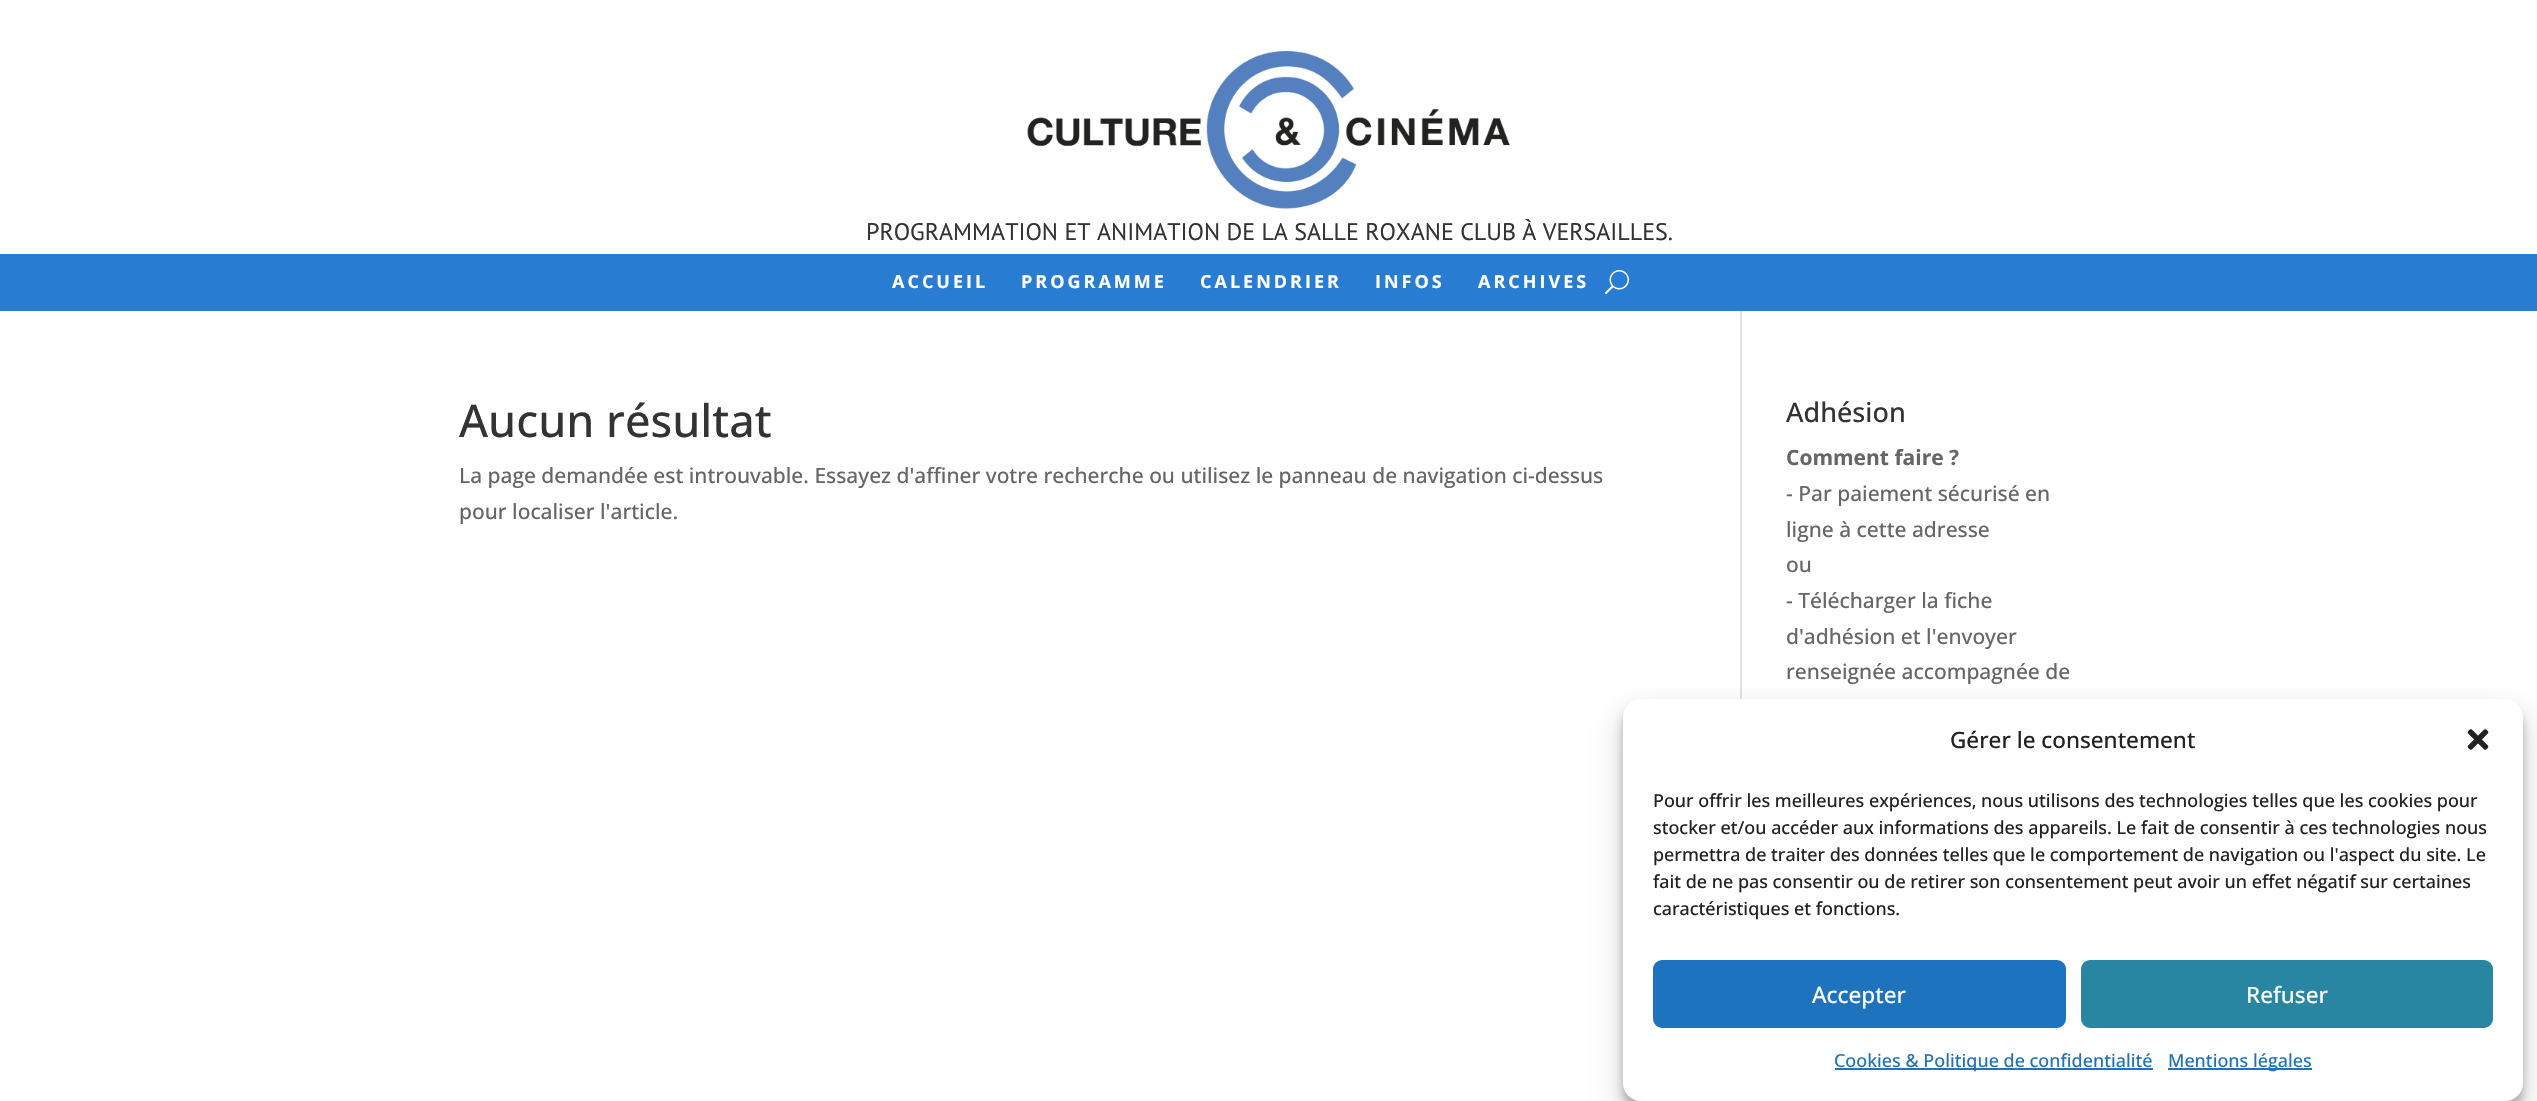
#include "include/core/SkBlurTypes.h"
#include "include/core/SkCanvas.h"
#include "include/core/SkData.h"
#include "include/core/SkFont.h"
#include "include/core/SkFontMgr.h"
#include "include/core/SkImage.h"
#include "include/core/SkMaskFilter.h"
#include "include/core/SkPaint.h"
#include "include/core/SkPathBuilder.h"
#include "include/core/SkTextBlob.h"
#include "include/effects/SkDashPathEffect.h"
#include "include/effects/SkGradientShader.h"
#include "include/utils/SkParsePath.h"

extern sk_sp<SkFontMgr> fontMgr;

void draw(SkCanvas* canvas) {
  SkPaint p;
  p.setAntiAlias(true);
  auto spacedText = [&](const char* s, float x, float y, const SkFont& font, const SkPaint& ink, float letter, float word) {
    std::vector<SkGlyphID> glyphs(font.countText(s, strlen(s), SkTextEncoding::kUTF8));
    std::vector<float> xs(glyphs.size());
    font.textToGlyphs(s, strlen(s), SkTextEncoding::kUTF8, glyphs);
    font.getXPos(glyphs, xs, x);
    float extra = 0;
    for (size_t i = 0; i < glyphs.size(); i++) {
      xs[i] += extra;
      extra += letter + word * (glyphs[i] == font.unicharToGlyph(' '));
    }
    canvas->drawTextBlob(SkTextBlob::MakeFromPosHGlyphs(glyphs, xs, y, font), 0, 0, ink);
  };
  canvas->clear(SK_ColorWHITE);
  canvas->drawImageRect(SkImages::DeferredFromEncodedData(SkData::MakeFromFileName("images/1.png")), SkRect::MakeLTRB(1027, 51, 1510, 209), SkSamplingOptions());
  p.setColor(SkColorSetRGB(40, 125, 211));
  canvas->drawRect(SkRect::MakeLTRB(0, 254, 2537, 311), p);
  canvas->drawImageRect(SkImages::DeferredFromEncodedData(SkData::MakeFromFileName("images/2.png")), SkRect::MakeLTRB(1604, 270, 1629, 295), SkSamplingOptions());
  p.setColor(SkColorSetRGB(226, 226, 226));
  canvas->drawRect(SkRect::MakeLTRB(1740, 311, 1742, 699), p);
  p.setColor(SkColorSetARGB(59, 0, 0, 0));
  p.setMaskFilter(SkMaskFilter::MakeBlur(kNormal_SkBlurStyle, 4.5f));
  canvas->drawRoundRect(SkRect::MakeLTRB(1623, 708, 2523, 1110), 18, 18, p);
  p.setMaskFilter(nullptr);
  p.setColor(SkColorSetARGB(48, 0, 0, 0));
  p.setMaskFilter(SkMaskFilter::MakeBlur(kNormal_SkBlurStyle, 15));
  canvas->drawRoundRect(SkRect::MakeLTRB(1623, 714, 2523, 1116), 18, 18, p);
  p.setMaskFilter(nullptr);
  p.setColor(SK_ColorWHITE);
  canvas->drawRoundRect(SkRect::MakeLTRB(1623, 699, 2523, 1101), 18, 18, p);
  canvas->drawImageRect(SkImages::DeferredFromEncodedData(SkData::MakeFromFileName("images/3.png")), SkRect::MakeLTRB(2467, 729, 2489, 750), SkSamplingOptions());
  p.setColor(SkColorSetRGB(30, 115, 190));
  canvas->drawRoundRect(SkRect::MakeLTRB(1654, 961, 2065, 1027), 8, 8, p);
  p.setStyle(SkPaint::kStroke_Style);
  p.setStrokeWidth(2);
  canvas->drawRoundRect(SkRect::MakeLTRB(1654, 961, 2065, 1027), 8, 8, p);
  p.setStyle(SkPaint::kFill_Style);
  p.setColor(SkColorSetRGB(40, 134, 162));
  canvas->drawRoundRect(SkRect::MakeLTRB(2082, 961, 2492, 1027), 8, 8, p);
  p.setStyle(SkPaint::kStroke_Style);
  canvas->drawRoundRect(SkRect::MakeLTRB(2082, 961, 2492, 1027), 8, 8, p);
  p.setStyle(SkPaint::kFill_Style);
  p.setColor(SkColorSetRGB(30, 115, 190));
  canvas->drawRect(SkRect::MakeLTRB(1835, 1068, 2153, 1070), p);
  canvas->drawRect(SkRect::MakeLTRB(2168, 1068, 2312, 1070), p);
  SkFont font1(fontMgr->matchFamilyStyle("PT Sans", SkFontStyle::Normal()), 24);
  font1.setSubpixel(true);
  p.setColor(SkColorSetRGB(51, 51, 51));
  canvas->drawString("PROGRAMMATION ET ANIMATION DE LA SALLE ROXANE CLUB À VERSAILLES.", 866, 240, font1, p);
  SkFont font2(fontMgr->matchFamilyStyle("Open Sans", SkFontStyle::Bold()), 18);
  font2.setSubpixel(true);
  p.setColor(SK_ColorWHITE);
  spacedText("ACCUEIL", 892, 288, font2, p, 3, 0);
  spacedText("PROGRAMME", 1021, 288, font2, p, 3, 0);
  spacedText("CALENDRIER", 1200, 288, font2, p, 3, 0);
  spacedText("INFOS", 1375, 288, font2, p, 3, 0);
  spacedText("ARCHIVES", 1478, 288, font2, p, 3, 0);
  SkFont font3(fontMgr->matchFamilyStyle("Open Sans", SkFontStyle(500, SkFontStyle::kNormal_Width, SkFontStyle::kUpright_Slant)), 45);
  font3.setSubpixel(true);
  p.setColor(SkColorSetRGB(51, 51, 51));
  canvas->drawString("Aucun résultat", 459, 437, font3, p);
  SkFont font4(fontMgr->matchFamilyStyle("Open Sans", SkFontStyle(500, SkFontStyle::kNormal_Width, SkFontStyle::kUpright_Slant)), 21);
  font4.setSubpixel(true);
  p.setColor(SkColorSetRGB(102, 102, 102));
  canvas->drawString("La page demandée est introuvable. Essayez d'affiner votre recherche ou utilisez le panneau de navigation ci-dessus", 459, 483, font4, p);
  canvas->drawString("pour localiser l'article.", 459, 519, font4, p);
  SkFont font5(fontMgr->matchFamilyStyle("Open Sans", SkFontStyle(500, SkFontStyle::kNormal_Width, SkFontStyle::kUpright_Slant)), 27);
  font5.setSubpixel(true);
  p.setColor(SkColorSetRGB(51, 51, 51));
  canvas->drawString("Adhésion", 1786, 422, font5, p);
  SkFont font6(fontMgr->matchFamilyStyle("Open Sans", SkFontStyle::Bold()), 21);
  font6.setSubpixel(true);
  p.setColor(SkColorSetRGB(102, 102, 102));
  canvas->drawString("Comment faire ?", 1786, 465, font6, p);
  canvas->drawString("- Par paiement sécurisé en", 1786, 501, font4, p);
  canvas->drawString("ligne à cette adresse", 1786, 537, font4, p);
  canvas->drawString("ou", 1786, 572, font4, p);
  canvas->drawString("- Télécharger la fiche", 1786, 608, font4, p);
  canvas->drawString("d'adhésion et l'envoyer", 1786, 644, font4, p);
  canvas->drawString("renseignée accompagnée de", 1786, 679, font4, p);
  SkFont font7(fontMgr->matchFamilyStyle("Open Sans", SkFontStyle(500, SkFontStyle::kNormal_Width, SkFontStyle::kUpright_Slant)), 22.5f);
  font7.setSubpixel(true);
  p.setColor(SkColorSetRGB(34, 34, 34));
  canvas->drawString("Gérer le consentement", 1950, 748, font7, p);
  SkFont font8(fontMgr->matchFamilyStyle("Open Sans", SkFontStyle(500, SkFontStyle::kNormal_Width, SkFontStyle::kUpright_Slant)), 18);
  font8.setSubpixel(true);
  canvas->drawString("Pour offrir les meilleures expériences, nous utilisons des technologies telles que les cookies pour", 1653, 807, font8, p);
  canvas->drawString("stocker et/ou accéder aux informations des appareils. Le fait de consentir à ces technologies nous", 1653, 834, font8, p);
  canvas->drawString("permettra de traiter des données telles que le comportement de navigation ou l'aspect du site. Le", 1653, 861, font8, p);
  canvas->drawString("fait de ne pas consentir ou de retirer son consentement peut avoir un effet négatif sur certaines", 1653, 888, font8, p);
  canvas->drawString("caractéristiques et fonctions.", 1653, 915, font8, p);
  p.setColor(SK_ColorWHITE);
  canvas->drawString("Accepter", 1812, 1003, font7, p);
  canvas->drawString("Refuser", 2246, 1003, font7, p);
  p.setColor(SkColorSetRGB(30, 115, 190));
  canvas->drawString("Cookies & Politique de confidentialité", 1834, 1067, font8, p);
  canvas->drawString("Mentions légales", 2168, 1067, font8, p);
}
